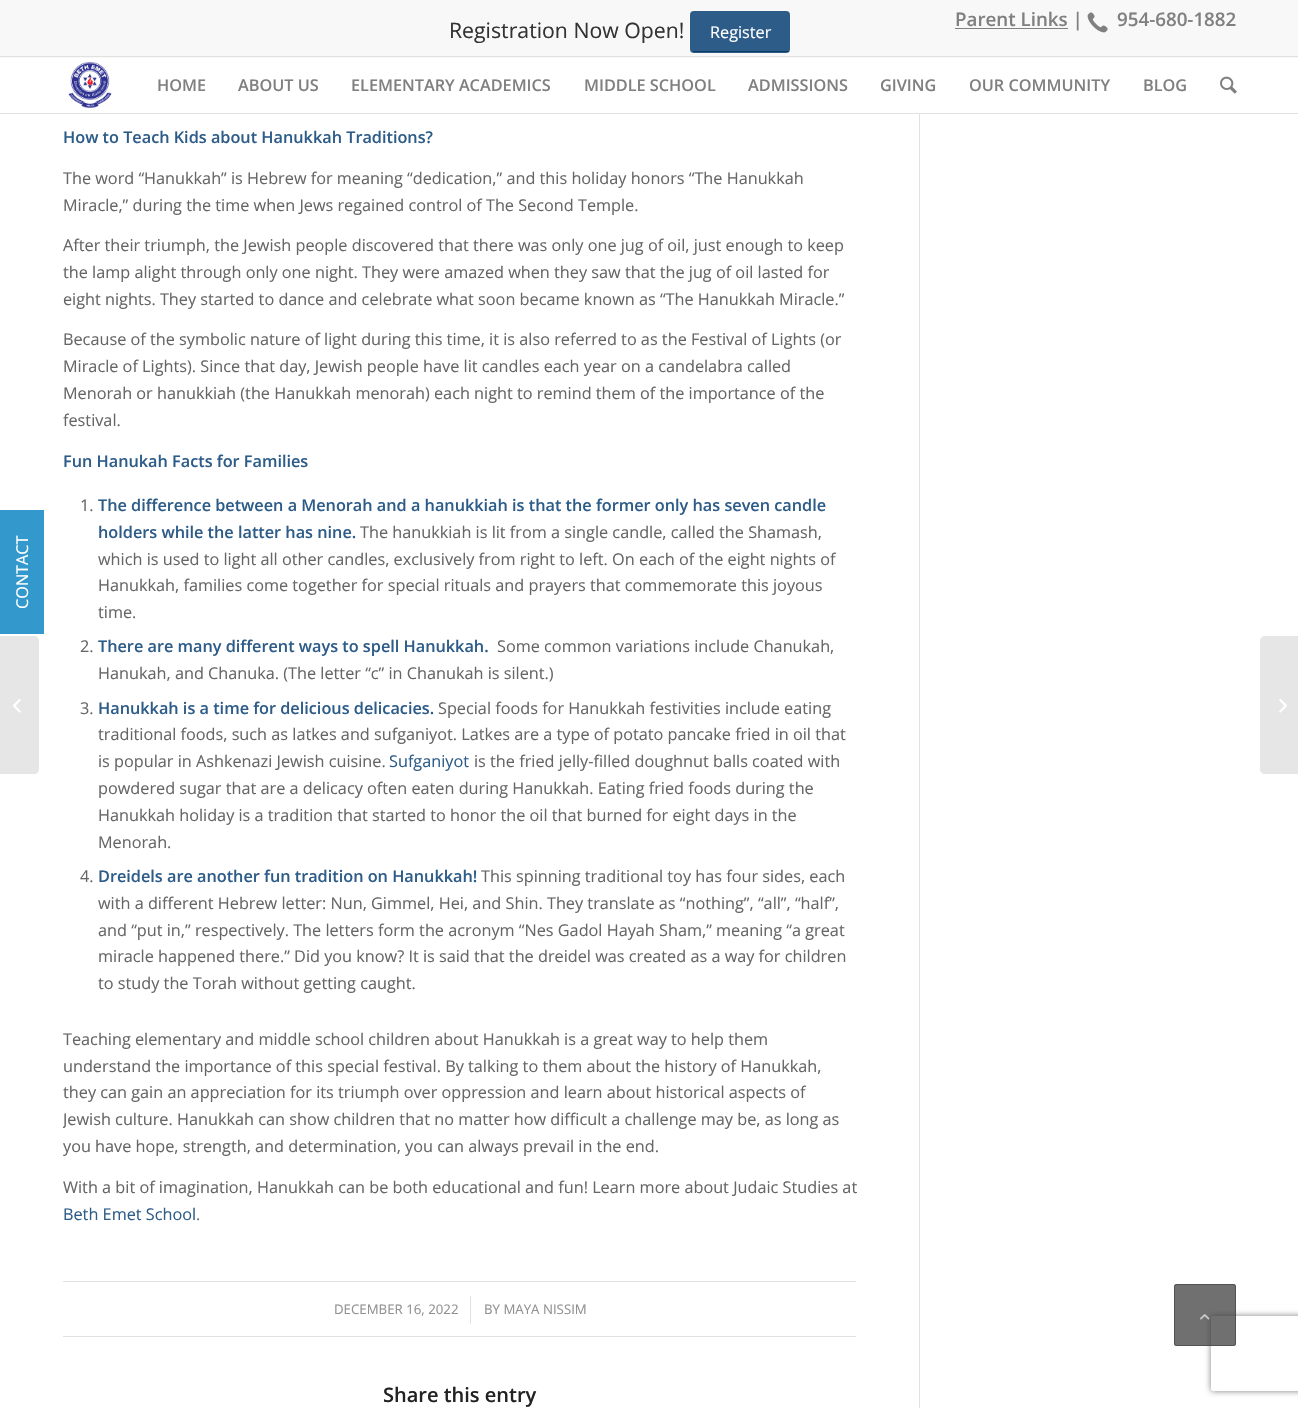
#include "include/core/SkBlurTypes.h"
#include "include/core/SkCanvas.h"
#include "include/core/SkData.h"
#include "include/core/SkFont.h"
#include "include/core/SkFontMgr.h"
#include "include/core/SkImage.h"
#include "include/core/SkMaskFilter.h"
#include "include/core/SkPaint.h"
#include "include/core/SkPathBuilder.h"
#include "include/core/SkTextBlob.h"
#include "include/effects/SkDashPathEffect.h"
#include "include/effects/SkGradientShader.h"
#include "include/utils/SkParsePath.h"

extern sk_sp<SkFontMgr> fontMgr;

void draw(SkCanvas* canvas) {
  SkPaint p;
  p.setAntiAlias(true);
  canvas->clear(SK_ColorWHITE);
  p.setColor(SkColorSetRGB(51, 153, 204));
  canvas->drawRect(SkRect::MakeLTRB(0, 510, 44, 634), p);
  p.setColor(SkColorSetRGB(248, 248, 248));
  canvas->drawRect(SkRect::MakeLTRB(0, 0, 1298, 58), p);
  p.setColor(SkColorSetRGB(225, 225, 225));
  canvas->drawRect(SkRect::MakeLTRB(0, 56, 1298, 57), p);
  p.setColor(SkColorSetRGB(45, 92, 136));
  canvas->drawRoundRect(SkRect::MakeLTRB(690, 11, 790, 53), 4, 4, p);
  p.setColor(SkColorSetRGB(11, 58, 102));
  canvas->drawRect(SkRect::MakeLTRB(693, 51, 789, 52), p);
  p.setColor(SkColorSetRGB(128, 128, 128));
  canvas->drawRect(SkRect::MakeLTRB(955, 28, 1068, 29), p);
  canvas->drawImageRect(SkImages::DeferredFromEncodedData(SkData::MakeFromFileName("images/1.png")), SkRect::MakeLTRB(1087, 12, 1108, 33), SkSamplingOptions());
  p.setColor(SkColorSetRGB(225, 225, 225));
  canvas->drawRect(SkRect::MakeLTRB(0, 113, 1298, 114), p);
  canvas->drawImageRect(SkImages::DeferredFromEncodedData(SkData::MakeFromFileName("images/2.png")), SkRect::MakeLTRB(68, 62, 112, 108), SkSamplingOptions());
  canvas->drawImageRect(SkImages::DeferredFromEncodedData(SkData::MakeFromFileName("images/3.png")), SkRect::MakeLTRB(1220, 76, 1237, 94), SkSamplingOptions());
  p.setColor(SkColorSetRGB(230, 230, 230));
  canvas->drawPath(SkPathBuilder().moveTo(0, 636).lineTo(34, 636).cubicTo(37, 636, 39, 638, 39, 641).lineTo(39, 769).cubicTo(39, 772, 37, 774, 34, 774).lineTo(0, 774).close().detach(), p);
  canvas->drawImageRect(SkImages::DeferredFromEncodedData(SkData::MakeFromFileName("images/4.png")), SkRect::MakeLTRB(13, 699, 21, 713), SkSamplingOptions());
  p.setColor(SkColorSetRGB(225, 225, 225));
  canvas->drawRect(SkRect::MakeLTRB(919, 114, 920, 1408), p);
  canvas->drawRect(SkRect::MakeLTRB(63, 1281, 856, 1282), p);
  canvas->drawRect(SkRect::MakeLTRB(63, 1336, 856, 1337), p);
  canvas->drawRect(SkRect::MakeLTRB(470, 1296, 471, 1324), p);
  p.setColor(SkColorSetRGB(230, 230, 230));
  canvas->drawPath(SkPathBuilder().moveTo(1265, 636).lineTo(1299, 636).lineTo(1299, 774).lineTo(1265, 774).cubicTo(1262, 774, 1260, 772, 1260, 769).lineTo(1260, 641).cubicTo(1260, 638, 1262, 636, 1265, 636).close().detach(), p);
  canvas->drawImageRect(SkImages::DeferredFromEncodedData(SkData::MakeFromFileName("images/5.png")), SkRect::MakeLTRB(1279, 699, 1287, 713), SkSamplingOptions());
  canvas->save();
  canvas->clipPath(SkPathBuilder(SkPathFillType::kEvenOdd).moveTo(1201, 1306).lineTo(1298, 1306).lineTo(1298, 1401).lineTo(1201, 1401).close().moveTo(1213.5f, 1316).lineTo(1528.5f, 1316).cubicTo(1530, 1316, 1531, 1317, 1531, 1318.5f).lineTo(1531, 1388.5f).cubicTo(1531, 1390, 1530, 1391, 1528.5f, 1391).lineTo(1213.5f, 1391).cubicTo(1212, 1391, 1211, 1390, 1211, 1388.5f).lineTo(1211, 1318.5f).cubicTo(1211, 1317, 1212, 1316, 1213.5f, 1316).close().detach(), true);
  p.setColor(SkColorSetRGB(128, 128, 128));
  p.setMaskFilter(SkMaskFilter::MakeBlur(kNormal_SkBlurStyle, 3));
  canvas->drawRoundRect(SkRect::MakeLTRB(1211, 1316, 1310, 1391), 2.5f, 2.5f, p);
  p.setMaskFilter(nullptr);
  canvas->restore();
  p.setColor(SkColorSetARGB(179, 51, 51, 51));
  canvas->drawRoundRect(SkRect::MakeLTRB(1174, 1284, 1236, 1346), 2.5f, 2.5f, p);
  p.setStyle(SkPaint::kStroke_Style);
  p.setStrokeWidth(1);
  p.setColor(SkColorSetARGB(179, 68, 68, 68));
  canvas->drawRoundRect(SkRect::MakeLTRB(1174.5f, 1284.5f, 1235.5f, 1345.5f), 2, 2, p);
  canvas->drawImageRect(SkImages::DeferredFromEncodedData(SkData::MakeFromFileName("images/6.png")), SkRect::MakeLTRB(1200, 1314, 1210, 1320), SkSamplingOptions());
  SkFont font1(fontMgr->matchFamilyStyle("Open Sans", SkFontStyle::Normal()), 16.25f);
  font1.setSubpixel(true);
  p.setStyle(SkPaint::kFill_Style);
  p.setColor(SK_ColorWHITE);
  canvas->save();
  canvas->rotate(-90, 28, 609);
  canvas->drawString("CONTACT", 28, 609, font1, p);
  canvas->restore();
  SkFont font2(fontMgr->matchFamilyStyle("Open Sans", SkFontStyle::Normal()), 21.25f);
  font2.setSubpixel(true);
  p.setColor(SkColorSetRGB(51, 51, 51));
  canvas->drawString("Registration Now Open!", 449, 38, font2, p);
  p.setColor(SK_ColorWHITE);
  canvas->drawString("Register", 710, 38, font1, p);
  SkFont font3(fontMgr->matchFamilyStyle("Open Sans", SkFontStyle(600, SkFontStyle::kNormal_Width, SkFontStyle::kUpright_Slant)), 18.75f);
  font3.setSubpixel(true);
  p.setColor(SkColorSetRGB(128, 128, 128));
  canvas->drawString("Parent Links |", 955, 26, font3, p);
  canvas->drawString("954-680-1882", 1117, 26, font3, p);
  SkFont font4(fontMgr->matchFamilyStyle("Open Sans", SkFontStyle(600, SkFontStyle::kNormal_Width, SkFontStyle::kUpright_Slant)), 16.25f);
  font4.setSubpixel(true);
  canvas->drawString("HOME", 157, 91, font4, p);
  canvas->drawString("ABOUT US", 238, 91, font4, p);
  canvas->drawString("ELEMENTARY ACADEMICS", 351, 91, font4, p);
  canvas->drawString("MIDDLE SCHOOL", 584, 91, font4, p);
  canvas->drawString("ADMISSIONS", 748, 91, font4, p);
  canvas->drawString("GIVING", 880, 91, font4, p);
  canvas->drawString("OUR COMMUNITY", 969, 91, font4, p);
  canvas->drawString("BLOG", 1143, 91, font4, p);
  p.setColor(SkColorSetRGB(45, 92, 136));
  canvas->drawString("How to Teach Kids about Hanukkah Traditions?", 63, 143, font4, p);
  p.setColor(SkColorSetRGB(102, 102, 102));
  canvas->drawString("The word “Hanukkah” is Hebrew for meaning “dedication,” and this holiday honors “The Hanukkah", 63, 184, font1, p);
  canvas->drawString("Miracle,” during the time when Jews regained control of The Second Temple.", 63, 211, font1, p);
  canvas->drawString("After their triumph, the Jewish people discovered that there was only one jug of oil, just enough to keep", 63, 251, font1, p);
  canvas->drawString("the lamp alight through only one night. They were amazed when they saw that the jug of oil lasted for", 63, 278, font1, p);
  canvas->drawString("eight nights. They started to dance and celebrate what soon became known as “The Hanukkah Miracle.”", 63, 305, font1, p);
  canvas->drawString("Because of the symbolic nature of light during this time, it is also referred to as the Festival of Lights (or", 63, 345, font1, p);
  canvas->drawString("Miracle of Lights). Since that day, Jewish people have lit candles each year on a candelabra called", 63, 372, font1, p);
  canvas->drawString("Menorah or hanukkiah (the Hanukkah menorah) each night to remind them of the importance of the", 63, 399, font1, p);
  canvas->drawString("festival.", 63, 426, font1, p);
  p.setColor(SkColorSetRGB(45, 92, 136));
  canvas->drawString("Fun Hanukah Facts for Families", 63, 467, font4, p);
  p.setColor(SkColorSetRGB(102, 102, 102));
  canvas->drawString("1.", 80, 511, font1, p);
  p.setColor(SkColorSetRGB(45, 92, 136));
  canvas->drawString("The difference between a Menorah and a hanukkiah is that the former only has seven candle", 98, 511, font4, p);
  canvas->drawString("holders while the latter has nine.", 98, 538, font4, p);
  p.setColor(SkColorSetRGB(102, 102, 102));
  canvas->drawString("The hanukkiah is lit from a single candle, called the Shamash,", 360, 538, font1, p);
  canvas->drawString("which is used to light all other candles, exclusively from right to left. On each of the eight nights of", 98, 565, font1, p);
  canvas->drawString("Hanukkah, families come together for special rituals and prayers that commemorate this joyous", 98, 591, font1, p);
  canvas->drawString("time.", 98, 618, font1, p);
  canvas->drawString("2.", 80, 652, font1, p);
  p.setColor(SkColorSetRGB(45, 92, 136));
  canvas->drawString("There are many different ways to spell Hanukkah.", 98, 652, font4, p);
  p.setColor(SkColorSetRGB(102, 102, 102));
  canvas->drawString("Some common variations include Chanukah,", 497, 652, font1, p);
  canvas->drawString("Hanukah, and Chanuka. (The letter “c” in Chanukah is silent.)", 98, 679, font1, p);
  canvas->drawString("3.", 80, 714, font1, p);
  p.setColor(SkColorSetRGB(45, 92, 136));
  canvas->drawString("Hanukkah is a time for delicious delicacies.", 98, 714, font4, p);
  p.setColor(SkColorSetRGB(102, 102, 102));
  canvas->drawString("Special foods for Hanukkah festivities include eating", 438, 714, font1, p);
  canvas->drawString("traditional foods, such as latkes and sufganiyot. Latkes are a type of potato pancake fried in oil that", 98, 740, font1, p);
  canvas->drawString("is popular in Ashkenazi Jewish cuisine.", 98, 767, font1, p);
  p.setColor(SkColorSetRGB(45, 92, 136));
  canvas->drawString("Sufganiyot", 389, 767, font1, p);
  p.setColor(SkColorSetRGB(102, 102, 102));
  canvas->drawString("is the fried jelly-filled doughnut balls coated with", 474, 767, font1, p);
  canvas->drawString("powdered sugar that are a delicacy often eaten during Hanukkah. Eating fried foods during the", 98, 794, font1, p);
  canvas->drawString("Hanukkah holiday is a tradition that started to honor the oil that burned for eight days in the", 98, 821, font1, p);
  canvas->drawString("Menorah.", 98, 848, font1, p);
  canvas->drawString("4.", 80, 882, font1, p);
  p.setColor(SkColorSetRGB(45, 92, 136));
  canvas->drawString("Dreidels are another fun tradition on Hanukkah!", 98, 882, font4, p);
  p.setColor(SkColorSetRGB(102, 102, 102));
  canvas->drawString("This spinning traditional toy has four sides, each", 481, 882, font1, p);
  canvas->drawString("with a different Hebrew letter: Nun, Gimmel, Hei, and Shin. They translate as “nothing”, “all”, “half”,", 98, 909, font1, p);
  canvas->drawString("and “put in,” respectively. The letters form the acronym “Nes Gadol Hayah Sham,” meaning “a great", 98, 936, font1, p);
  canvas->drawString("miracle happened there.” Did you know? It is said that the dreidel was created as a way for children", 98, 962, font1, p);
  canvas->drawString("to study the Torah without getting caught.", 98, 989, font1, p);
  canvas->drawString("Teaching elementary and middle school children about Hanukkah is a great way to help them", 63, 1045, font1, p);
  canvas->drawString("understand the importance of this special festival. By talking to them about the history of Hanukkah,", 63, 1072, font1, p);
  canvas->drawString("they can gain an appreciation for its triumph over oppression and learn about historical aspects of", 63, 1098, font1, p);
  canvas->save();
  canvas->clipRect(SkRect::MakeLTRB(63, 0, 919, 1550));
  canvas->drawString("Jewish culture. Hanukkah can show children that no matter how difficult a challenge may be, as long as", 63, 1125, font1, p);
  canvas->drawString("you have hope, strength, and determination, you can always prevail in the end.", 63, 1152, font1, p);
  canvas->restore();
  canvas->drawString("With a bit of imagination, Hanukkah can be both educational and fun! Learn more about Judaic Studies at", 63, 1193, font1, p);
  p.setColor(SkColorSetRGB(45, 92, 136));
  canvas->drawString("Beth Emet School", 63, 1220, font1, p);
  p.setColor(SkColorSetRGB(102, 102, 102));
  canvas->drawString(".", 196, 1220, font1, p);
  SkFont font5(fontMgr->matchFamilyStyle("Open Sans", SkFontStyle::Normal()), 13.25f);
  font5.setSubpixel(true);
  p.setColor(SkColorSetRGB(145, 145, 145));
  canvas->drawString("DECEMBER 16, 2022", 334, 1314, font5, p);
  canvas->drawString("BY MAYA NISSIM", 484, 1314, font5, p);
  SkFont font6(fontMgr->matchFamilyStyle("Open Sans", SkFontStyle(600, SkFontStyle::kNormal_Width, SkFontStyle::kUpright_Slant)), 20);
  font6.setSubpixel(true);
  p.setColor(SkColorSetRGB(34, 34, 34));
  canvas->drawString("Share this entry", 383, 1402, font6, p);
}
